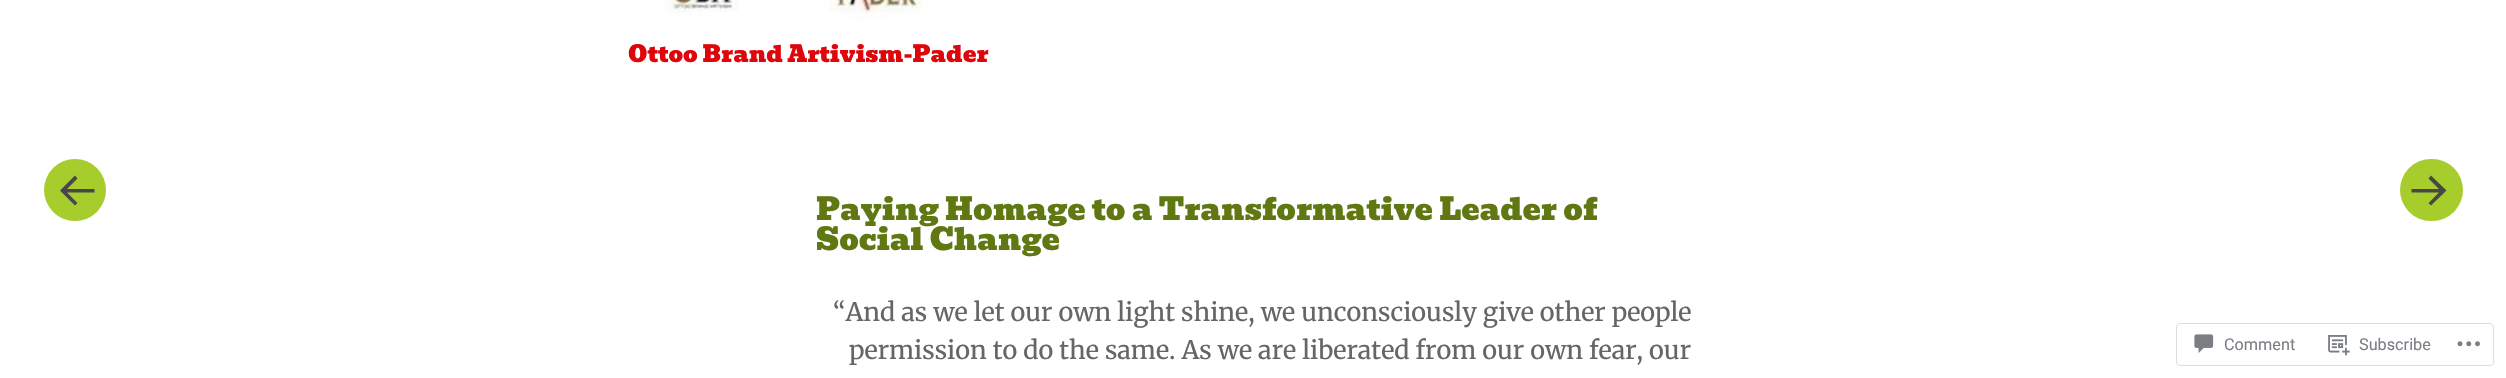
#include "include/core/SkBlurTypes.h"
#include "include/core/SkCanvas.h"
#include "include/core/SkData.h"
#include "include/core/SkFont.h"
#include "include/core/SkFontMgr.h"
#include "include/core/SkImage.h"
#include "include/core/SkMaskFilter.h"
#include "include/core/SkPaint.h"
#include "include/core/SkPathBuilder.h"
#include "include/core/SkTextBlob.h"
#include "include/effects/SkDashPathEffect.h"
#include "include/effects/SkGradientShader.h"
#include "include/utils/SkParsePath.h"

extern sk_sp<SkFontMgr> fontMgr;

void draw(SkCanvas* canvas) {
  SkPaint p;
  p.setAntiAlias(true);
  canvas->clear(SK_ColorWHITE);
  canvas->drawImageRect(SkImages::DeferredFromEncodedData(SkData::MakeFromFileName("images/1.png")), SkRect::MakeLTRB(664, 0, 924, 21), SkSamplingOptions());
  p.setColor(SkColorSetRGB(167, 205, 44));
  canvas->drawCircle(75, 190, 31, p);
  p.setColor(SkColorSetRGB(71, 71, 71));
  canvas->drawPath(SkPathBuilder().moveTo(60, 190.5f).lineTo(75, 205.5f).lineTo(77.5f, 203).lineTo(67, 192.5f).lineTo(94.5f, 192.5f).lineTo(94.5f, 189).lineTo(67, 189).lineTo(77.5f, 178.5f).lineTo(75, 175.5f).close().detach(), p);
  p.setColor(SkColorSetRGB(167, 205, 44));
  canvas->drawRoundRect(SkRect::MakeLTRB(2400, 159, 2463, 221), 31, 31, p);
  p.setColor(SkColorSetRGB(71, 71, 71));
  canvas->drawPath(SkPathBuilder().moveTo(2446.5f, 190.5f).lineTo(2431, 205.5f).lineTo(2428.5f, 203).lineTo(2439, 192.5f).lineTo(2411.5f, 192.5f).lineTo(2411.5f, 189).lineTo(2439, 189).lineTo(2428.5f, 178.5f).lineTo(2431, 175.5f).close().detach(), p);
  p.setStyle(SkPaint::kStroke_Style);
  p.setStrokeWidth(1);
  p.setColor(SkColorSetRGB(221, 221, 223));
  canvas->drawRoundRect(SkRect::MakeLTRB(2176.5f, 323.5f, 2493.5f, 365.5f), 3.5f, 3.5f, p);
  canvas->drawImageRect(SkImages::DeferredFromEncodedData(SkData::MakeFromFileName("images/2.png")), SkRect::MakeLTRB(2194, 334, 2214, 353), SkSamplingOptions());
  canvas->drawImageRect(SkImages::DeferredFromEncodedData(SkData::MakeFromFileName("images/3.png")), SkRect::MakeLTRB(2328, 335, 2350, 356), SkSamplingOptions());
  canvas->drawImageRect(SkImages::DeferredFromEncodedData(SkData::MakeFromFileName("images/4.png")), SkRect::MakeLTRB(2457, 341, 2480, 347), SkSamplingOptions());
  SkFont font1(fontMgr->matchFamilyStyle("Bevan", SkFontStyle::Normal()), 22.75f);
  font1.setSubpixel(true);
  p.setStyle(SkPaint::kFill_Style);
  p.setColor(SkColorSetRGB(222, 6, 10));
  canvas->drawString("Ottoo Brand Artivism-Pader", 628, 62, font1, p);
  SkFont font2(fontMgr->matchFamilyStyle("Bevan", SkFontStyle::Normal()), 30.4f);
  font2.setSubpixel(true);
  p.setColor(SkColorSetRGB(96, 120, 17));
  canvas->drawString("Paying Homage to a Transformative Leader of", 816, 220, font2, p);
  canvas->drawString("Social Change", 816, 250, font2, p);
  SkFont font3(fontMgr->matchFamilyStyle("Merriweather", SkFontStyle::Normal()), 25.25f);
  font3.setSubpixel(true);
  p.setColor(SkColorSetRGB(102, 102, 102));
  canvas->drawString("“And as we let our own light shine, we unconsciously give other people", 833, 321, font3, p);
  canvas->drawString("permission to do the same. As we are liberated from our own fear, our", 849, 359, font3, p);
  SkFont font4(fontMgr->matchFamilyStyle("Roboto", SkFontStyle::Normal()), 16.25f);
  font4.setSubpixel(true);
  p.setColor(SkColorSetRGB(123, 127, 133));
  canvas->drawString("Comment", 2224, 350, font4, p);
  canvas->drawString("Subscribe", 2359, 350, font4, p);
}
